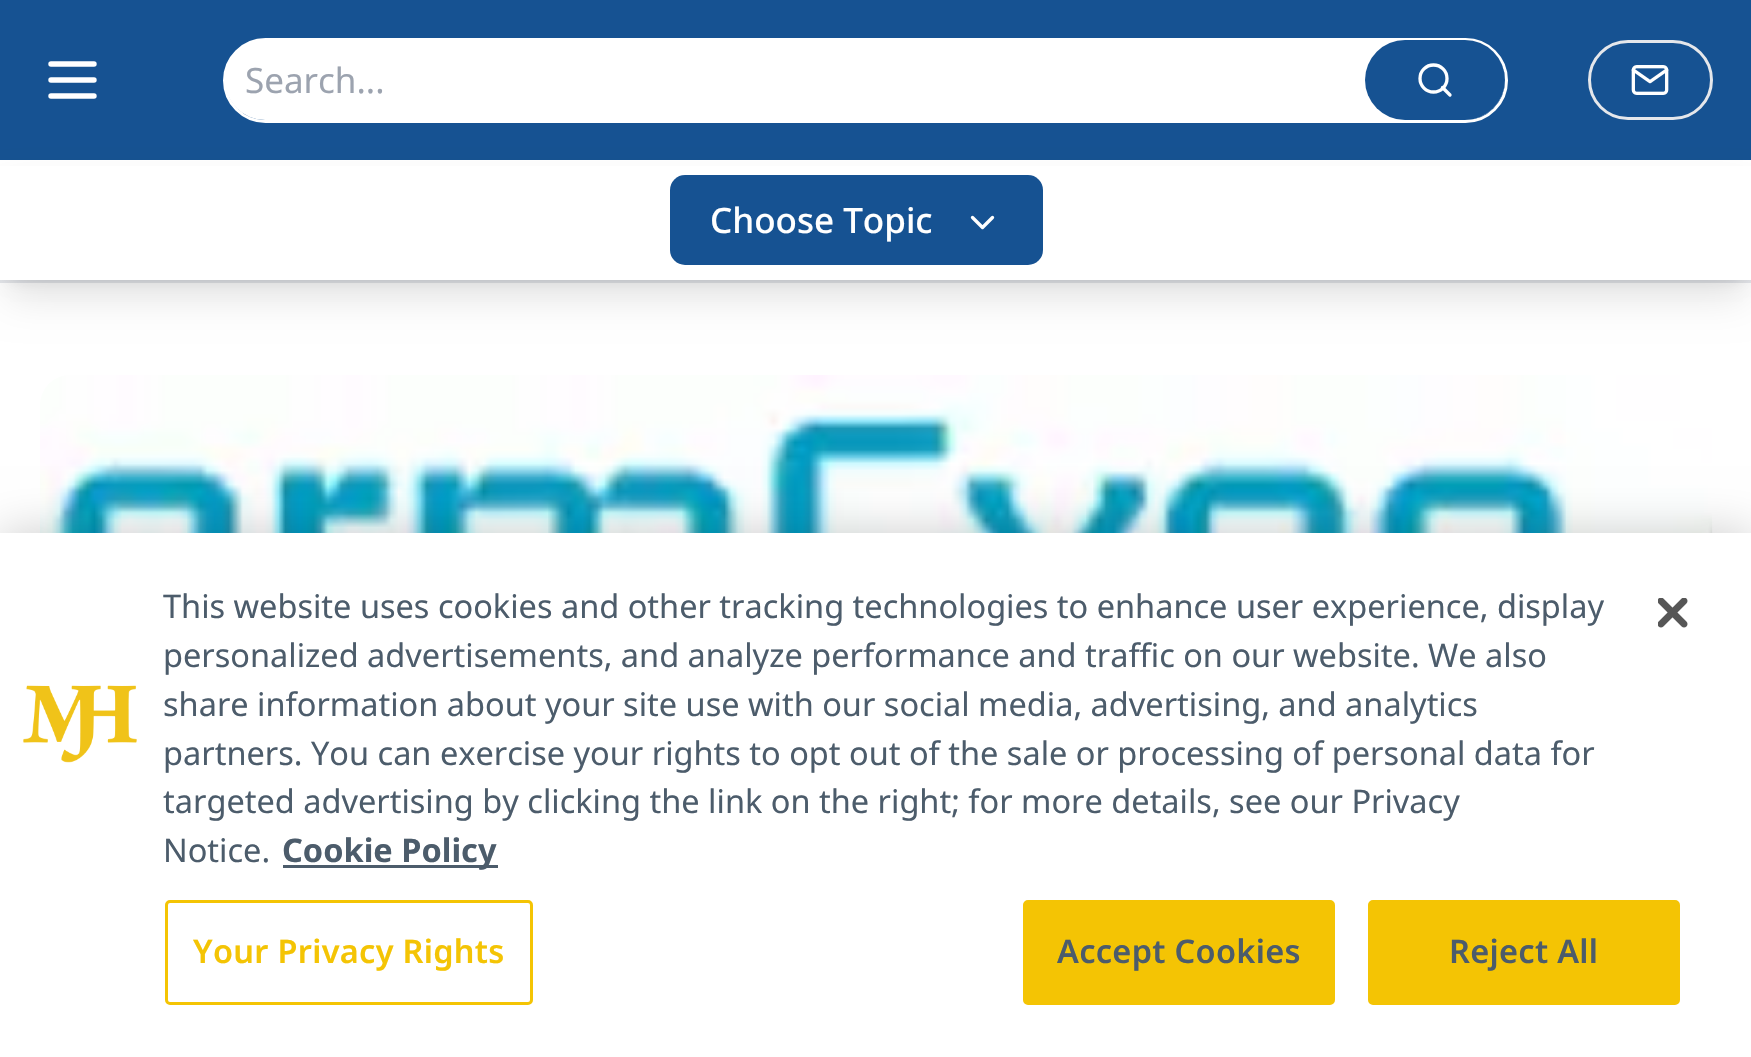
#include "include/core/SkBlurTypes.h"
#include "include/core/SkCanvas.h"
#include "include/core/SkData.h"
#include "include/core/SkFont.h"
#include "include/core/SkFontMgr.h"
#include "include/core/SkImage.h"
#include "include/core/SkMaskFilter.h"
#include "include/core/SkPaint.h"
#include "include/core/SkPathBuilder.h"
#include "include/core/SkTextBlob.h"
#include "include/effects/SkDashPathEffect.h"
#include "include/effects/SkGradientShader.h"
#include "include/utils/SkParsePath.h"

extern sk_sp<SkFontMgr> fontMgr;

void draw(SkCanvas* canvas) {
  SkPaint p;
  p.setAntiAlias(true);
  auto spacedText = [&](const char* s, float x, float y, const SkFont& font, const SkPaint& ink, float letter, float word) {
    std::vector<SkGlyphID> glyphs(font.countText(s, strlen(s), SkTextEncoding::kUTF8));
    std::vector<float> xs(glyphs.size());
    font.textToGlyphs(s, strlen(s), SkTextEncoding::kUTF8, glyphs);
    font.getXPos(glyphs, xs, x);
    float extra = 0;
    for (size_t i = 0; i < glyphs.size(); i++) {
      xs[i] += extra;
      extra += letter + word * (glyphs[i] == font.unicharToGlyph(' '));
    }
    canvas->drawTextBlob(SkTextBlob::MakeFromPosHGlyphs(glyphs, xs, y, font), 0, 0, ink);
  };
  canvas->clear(SK_ColorWHITE);
  p.setColor(SkColorSetRGB(22, 82, 146));
  canvas->drawRect(SkRect::MakeLTRB(0, 0, 1751, 160), p);
  p.setColor(SkColorSetRGB(229, 231, 235));
  canvas->drawRect(SkRect::MakeLTRB(0, 280, 1751, 283), p);
  p.setStyle(SkPaint::kStroke_Style);
  p.setStrokeWidth(5.4f);
  p.setStrokeCap(SkPaint::kRound_Cap);
  p.setStrokeJoin(SkPaint::kRound_Join);
  p.setColor(SK_ColorWHITE);
  canvas->drawPath(SkPathBuilder().moveTo(51, 64).lineTo(94, 64).moveTo(51, 80).lineTo(94, 80).moveTo(51, 96).lineTo(94, 96).detach(), p);
  p.setStrokeWidth(3);
  p.setStrokeCap(SkPaint::kButt_Cap);
  p.setStrokeJoin(SkPaint::kMiter_Join);
  canvas->drawRoundRect(SkRect::MakeLTRB(224.5f, 39.5f, 1506.5f, 121.5f), 41, 41, p);
  p.setStyle(SkPaint::kFill_Style);
  canvas->drawRoundRect(SkRect::MakeLTRB(225, 40, 1505, 120), 40, 40, p);
  p.setColor(SkColorSetRGB(22, 82, 146));
  canvas->drawRoundRect(SkRect::MakeLTRB(1365, 40, 1505, 120), 40, 40, p);
  p.setStyle(SkPaint::kStroke_Style);
  p.setStrokeWidth(3.3f);
  p.setColor(SK_ColorWHITE);
  canvas->drawCircle(1433.5f, 78.5f, 13.5f, p);
  p.setStrokeCap(SkPaint::kRound_Cap);
  p.setStrokeJoin(SkPaint::kRound_Join);
  canvas->drawPath(SkPathBuilder().moveTo(1450, 95).lineTo(1442.5f, 87.5f).detach(), p);
  p.setStrokeWidth(3);
  p.setStrokeCap(SkPaint::kButt_Cap);
  p.setStrokeJoin(SkPaint::kMiter_Join);
  p.setColor(SkColorSetRGB(229, 231, 235));
  canvas->drawRoundRect(SkRect::MakeLTRB(1589.5f, 41.5f, 1711.5f, 118.5f), 38.5f, 38.5f, p);
  canvas->drawImageRect(SkImages::DeferredFromEncodedData(SkData::MakeFromFileName("images/1.png")), SkRect::MakeLTRB(1631, 65, 1669, 95), SkSamplingOptions());
  p.setStyle(SkPaint::kFill_Style);
  p.setColor(SkColorSetARGB(26, 0, 0, 0));
  p.setMaskFilter(SkMaskFilter::MakeBlur(kNormal_SkBlurStyle, 7.5f));
  canvas->drawRect(SkRect::MakeLTRB(10, 180, 1743, 280), p);
  p.setMaskFilter(nullptr);
  p.setMaskFilter(SkMaskFilter::MakeBlur(kNormal_SkBlurStyle, 19));
  canvas->drawRect(SkRect::MakeLTRB(8, 193, 1745, 298), p);
  p.setMaskFilter(nullptr);
  p.setColor(SK_ColorWHITE);
  canvas->drawRect(SkRect::MakeLTRB(0, 166, 1751, 280), p);
  p.setColor(SkColorSetRGB(22, 82, 146));
  canvas->drawRoundRect(SkRect::MakeLTRB(670, 175, 1043, 265), 15, 15, p);
  p.setStyle(SkPaint::kStroke_Style);
  p.setStrokeWidth(3.3f);
  p.setStrokeCap(SkPaint::kRound_Cap);
  p.setStrokeJoin(SkPaint::kRound_Join);
  p.setColor(SK_ColorWHITE);
  canvas->drawPath(SkPathBuilder().moveTo(972.5f, 217.5f).lineTo(982.5f, 227.5f).lineTo(992.5f, 217.5f).detach(), p);
  canvas->drawImageRect(SkImages::DeferredFromEncodedData(SkData::MakeFromFileName("images/2.png")), SkRect::MakeLTRB(40, 375, 1713, 533), SkSamplingOptions());
  p.setStyle(SkPaint::kFill_Style);
  p.setColor(SkColorSetARGB(51, 0, 0, 0));
  p.setMaskFilter(SkMaskFilter::MakeBlur(kNormal_SkBlurStyle, 22.5f));
  canvas->drawRect(SkRect::MakeLTRB(0, 533, 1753, 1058), p);
  p.setMaskFilter(nullptr);
  p.setColor(SK_ColorWHITE);
  canvas->drawRect(SkRect::MakeLTRB(0, 533, 1751, 1057), p);
  canvas->drawImageRect(SkImages::DeferredFromEncodedData(SkData::MakeFromFileName("images/3.png")), SkRect::MakeLTRB(23, 685, 137, 763), SkSamplingOptions());
  p.setColor(SkColorSetRGB(76, 92, 107));
  canvas->drawRect(SkRect::MakeLTRB(283, 865, 498, 868), p);
  p.setStyle(SkPaint::kStroke_Style);
  p.setStrokeWidth(3);
  p.setStrokeCap(SkPaint::kButt_Cap);
  p.setStrokeJoin(SkPaint::kMiter_Join);
  p.setColor(SkColorSetRGB(244, 196, 4));
  canvas->drawRoundRect(SkRect::MakeLTRB(166.5f, 901.5f, 531.5f, 1003.5f), 3.5f, 3.5f, p);
  p.setStyle(SkPaint::kFill_Style);
  canvas->drawRoundRect(SkRect::MakeLTRB(1024.5f, 901.5f, 1333.5f, 1003.5f), 3.5f, 3.5f, p);
  p.setStyle(SkPaint::kStroke_Style);
  canvas->drawRoundRect(SkRect::MakeLTRB(1024.5f, 901.5f, 1333.5f, 1003.5f), 3.5f, 3.5f, p);
  p.setStyle(SkPaint::kFill_Style);
  canvas->drawRoundRect(SkRect::MakeLTRB(1369.5f, 901.5f, 1678.5f, 1003.5f), 3.5f, 3.5f, p);
  p.setStyle(SkPaint::kStroke_Style);
  canvas->drawRoundRect(SkRect::MakeLTRB(1369.5f, 901.5f, 1678.5f, 1003.5f), 3.5f, 3.5f, p);
  canvas->drawImageRect(SkImages::DeferredFromEncodedData(SkData::MakeFromFileName("images/4.png")), SkRect::MakeLTRB(1658, 598, 1688, 628), SkSamplingOptions());
  SkFont font1(fontMgr->matchFamilyStyle("Noto Sans", SkFontStyle::Normal()), 35);
  font1.setSubpixel(true);
  p.setStyle(SkPaint::kFill_Style);
  p.setColor(SkColorSetRGB(156, 163, 175));
  canvas->drawString("Search...", 245, 93, font1, p);
  SkFont font2(fontMgr->matchFamilyStyle("Noto Sans", SkFontStyle(500, SkFontStyle::kNormal_Width, SkFontStyle::kUpright_Slant)), 35);
  font2.setSubpixel(true);
  p.setColor(SK_ColorWHITE);
  canvas->drawString("Choose Topic", 710, 233, font2, p);
  SkFont font3(fontMgr->matchFamilyStyle("Noto Sans", SkFontStyle::Normal()), 32.5f);
  font3.setSubpixel(true);
  p.setColor(SkColorSetRGB(76, 92, 107));
  canvas->drawString("This website uses cookies and other tracking technologies to enhance user experience, display", 163, 618, font3, p);
  canvas->drawString("personalized advertisements, and analyze performance and traffic on our website. We also", 163, 667, font3, p);
  canvas->drawString("share information about your site use with our social media, advertising, and analytics", 163, 716, font3, p);
  canvas->drawString("partners. You can exercise your rights to opt out of the sale or processing of personal data for", 163, 765, font3, p);
  canvas->drawString("targeted advertising by clicking the link on the right; for more details, see our Privacy", 163, 813, font3, p);
  canvas->drawString("Notice.", 163, 862, font3, p);
  SkFont font4(fontMgr->matchFamilyStyle("Noto Sans", SkFontStyle::Bold()), 32.5f);
  font4.setSubpixel(true);
  canvas->drawString("Cookie Policy", 282, 862, font4, p);
  SkFont font5(fontMgr->matchFamilyStyle("Noto Sans", SkFontStyle(600, SkFontStyle::kNormal_Width, SkFontStyle::kUpright_Slant)), 32.5f);
  font5.setSubpixel(true);
  p.setColor(SkColorSetRGB(244, 196, 4));
  spacedText("Your Privacy Rights", 193, 963, font5, p, 0.3f, 0);
  p.setColor(SkColorSetRGB(76, 92, 107));
  spacedText("Accept Cookies", 1057, 963, font5, p, 0.3f, 0);
  spacedText("Reject All", 1449, 963, font5, p, 0.3f, 0);
}
